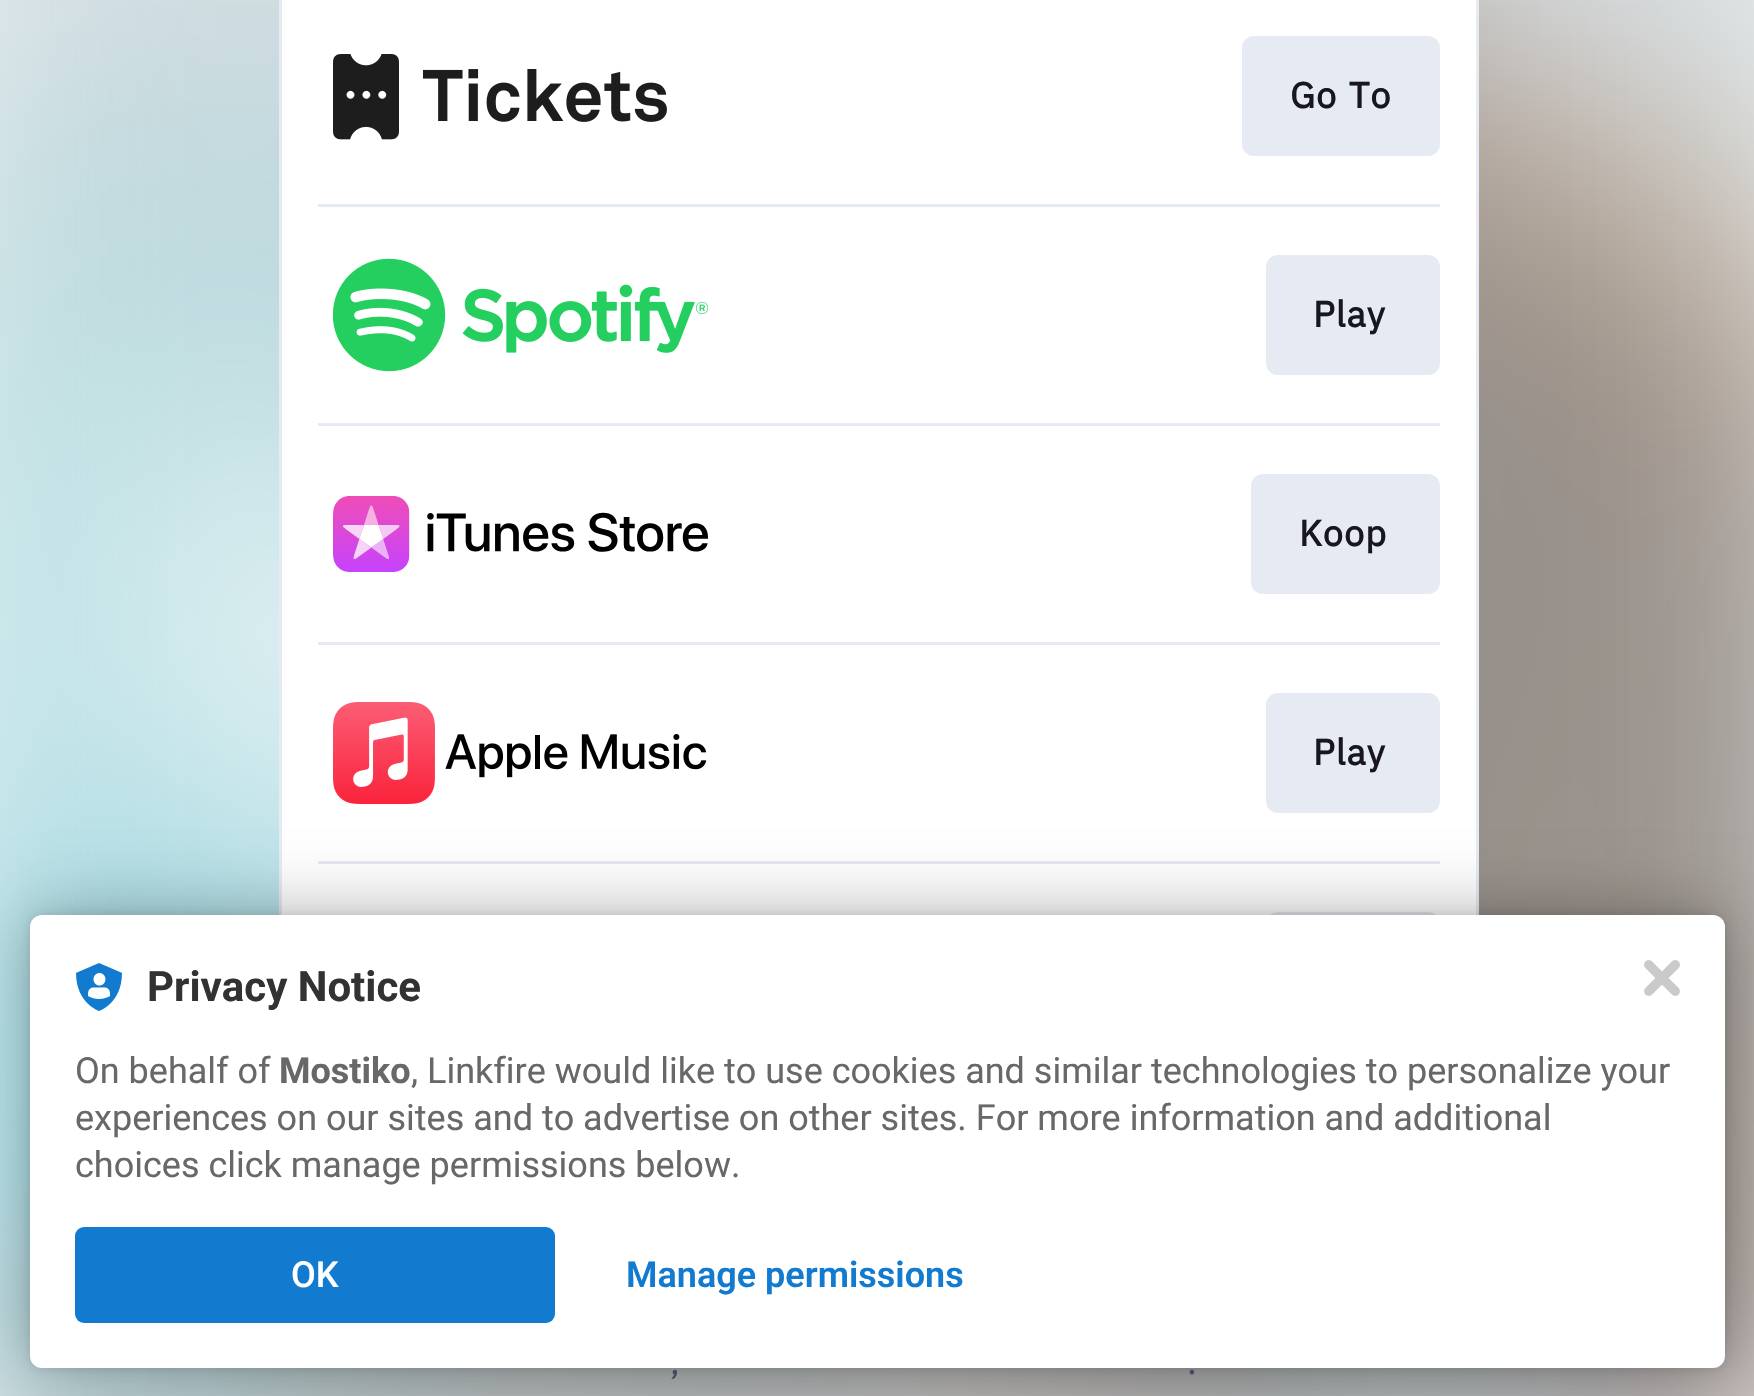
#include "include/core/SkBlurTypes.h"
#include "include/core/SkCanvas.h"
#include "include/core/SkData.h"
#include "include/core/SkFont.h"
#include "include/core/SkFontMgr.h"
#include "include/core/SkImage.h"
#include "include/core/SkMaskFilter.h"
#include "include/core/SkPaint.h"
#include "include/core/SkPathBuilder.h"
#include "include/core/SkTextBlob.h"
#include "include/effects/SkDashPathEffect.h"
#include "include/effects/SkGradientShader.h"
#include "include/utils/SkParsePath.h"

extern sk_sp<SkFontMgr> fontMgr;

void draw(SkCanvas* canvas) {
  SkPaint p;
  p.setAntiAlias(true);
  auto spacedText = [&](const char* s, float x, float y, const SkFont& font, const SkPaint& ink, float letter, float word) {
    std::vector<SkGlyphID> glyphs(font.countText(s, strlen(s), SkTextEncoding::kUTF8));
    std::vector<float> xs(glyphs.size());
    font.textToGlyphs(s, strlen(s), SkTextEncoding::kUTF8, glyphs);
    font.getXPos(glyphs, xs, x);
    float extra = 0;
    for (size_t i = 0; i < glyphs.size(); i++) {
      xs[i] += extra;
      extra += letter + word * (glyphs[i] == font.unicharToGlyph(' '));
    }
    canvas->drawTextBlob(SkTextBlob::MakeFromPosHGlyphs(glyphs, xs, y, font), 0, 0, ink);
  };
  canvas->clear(SK_ColorWHITE);
  canvas->drawImageRect(SkImages::DeferredFromEncodedData(SkData::MakeFromFileName("images/1.png")), SkRect::MakeLTRB(0, 0, 1754, 1396), SkSamplingOptions());
  p.setStyle(SkPaint::kStroke_Style);
  p.setStrokeWidth(3);
  p.setColor(SkColorSetRGB(230, 234, 242));
  canvas->drawRect(SkRect::MakeLTRB(280.5f, -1.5f, 1477.5f, 1300.5f), p);
  p.setStyle(SkPaint::kFill_Style);
  p.setColor(SK_ColorWHITE);
  canvas->drawRect(SkRect::MakeLTRB(282, 0, 1476, 915), p);
  canvas->drawImageRect(SkImages::DeferredFromEncodedData(SkData::MakeFromFileName("images/2.png")), SkRect::MakeLTRB(333, 54, 667, 140), SkSamplingOptions());
  p.setColor(SkColorSetRGB(230, 234, 242));
  canvas->drawRoundRect(SkRect::MakeLTRB(1242, 36, 1440, 156), 12, 12, p);
  canvas->drawRect(SkRect::MakeLTRB(318, 204, 1440, 207), p);
  canvas->drawImageRect(SkImages::DeferredFromEncodedData(SkData::MakeFromFileName("images/3.png")), SkRect::MakeLTRB(333, 258, 708, 372), SkSamplingOptions());
  canvas->drawRoundRect(SkRect::MakeLTRB(1266, 255, 1440, 375), 12, 12, p);
  canvas->drawRect(SkRect::MakeLTRB(318, 423, 1440, 426), p);
  canvas->drawImageRect(SkImages::DeferredFromEncodedData(SkData::MakeFromFileName("images/4.png")), SkRect::MakeLTRB(333, 496, 708, 572), SkSamplingOptions());
  canvas->drawRoundRect(SkRect::MakeLTRB(1251, 474, 1440, 594), 12, 12, p);
  canvas->drawRect(SkRect::MakeLTRB(318, 642, 1440, 645), p);
  canvas->drawImageRect(SkImages::DeferredFromEncodedData(SkData::MakeFromFileName("images/5.png")), SkRect::MakeLTRB(333, 702, 707, 804), SkSamplingOptions());
  canvas->drawRoundRect(SkRect::MakeLTRB(1266, 693, 1440, 813), 12, 12, p);
  canvas->drawRect(SkRect::MakeLTRB(318, 861, 1440, 864), p);
  canvas->drawRoundRect(SkRect::MakeLTRB(1266, 912, 1440, 1032), 12, 12, p);
  p.setColor(SkColorSetARGB(31, 0, 0, 0));
  p.setMaskFilter(SkMaskFilter::MakeBlur(kNormal_SkBlurStyle, 6));
  canvas->drawRoundRect(SkRect::MakeLTRB(30, 915, 1725, 1368), 12, 12, p);
  p.setMaskFilter(nullptr);
  p.setColor(SkColorSetARGB(77, 0, 0, 0));
  p.setMaskFilter(SkMaskFilter::MakeBlur(kNormal_SkBlurStyle, 36));
  canvas->drawRoundRect(SkRect::MakeLTRB(30, 915, 1725, 1368), 12, 12, p);
  p.setMaskFilter(nullptr);
  p.setColor(SK_ColorWHITE);
  canvas->drawRoundRect(SkRect::MakeLTRB(30, 915, 1725, 1368), 12, 12, p);
  canvas->drawImageRect(SkImages::DeferredFromEncodedData(SkData::MakeFromFileName("images/6.png")), SkRect::MakeLTRB(1644, 960, 1680, 996), SkSamplingOptions());
  canvas->drawImageRect(SkImages::DeferredFromEncodedData(SkData::MakeFromFileName("images/7.png")), SkRect::MakeLTRB(76, 963, 122, 1011), SkSamplingOptions());
  p.setColor(SkColorSetRGB(19, 123, 207));
  canvas->drawRoundRect(SkRect::MakeLTRB(75, 1227, 555, 1323), 9, 9, p);
  SkFont font1(fontMgr->matchFamilyStyle("IBM Plex Sans", SkFontStyle::Bold()), 36);
  font1.setSubpixel(true);
  p.setColor(SkColorSetRGB(24, 23, 33));
  spacedText("Go To", 1290, 108, font1, p, 1, 2);
  spacedText("Play", 1313, 327, font1, p, 1, 0);
  spacedText("Koop", 1299, 546, font1, p, 1, 0);
  spacedText("Play", 1313, 765, font1, p, 1, 0);
  SkFont font2(fontMgr->matchFamilyStyle("IBM Plex Sans", SkFontStyle::Normal()), 36);
  font2.setSubpixel(true);
  p.setColor(SkColorSetRGB(69, 75, 95));
  canvas->drawString(",", 670, 1374, font2, p);
  canvas->drawString(".", 1187, 1374, font2, p);
  SkFont font3(fontMgr->matchFamilyStyle("Roboto", SkFontStyle::Bold()), 42);
  font3.setSubpixel(true);
  p.setColor(SkColorSetRGB(50, 50, 50));
  canvas->drawString("Privacy Notice", 147, 1001, font3, p);
  SkFont font4(fontMgr->matchFamilyStyle("Roboto", SkFontStyle::Normal()), 36);
  font4.setSubpixel(true);
  p.setColor(SkColorSetRGB(104, 104, 104));
  canvas->drawString("On behalf of", 75, 1083, font4, p);
  SkFont font5(fontMgr->matchFamilyStyle("Roboto", SkFontStyle::Bold()), 36);
  font5.setSubpixel(true);
  canvas->drawString("Mostiko", 279, 1083, font5, p);
  canvas->drawString(", Linkfire would like to use cookies and similar technologies to personalize your", 411, 1083, font4, p);
  canvas->drawString("experiences on our sites and to advertise on other sites. For more information and additional", 75, 1130, font4, p);
  canvas->drawString("choices click manage permissions below.", 75, 1177, font4, p);
  SkFont font6(fontMgr->matchFamilyStyle("Roboto", SkFontStyle(500, SkFontStyle::kNormal_Width, SkFontStyle::kUpright_Slant)), 36);
  font6.setSubpixel(true);
  p.setColor(SK_ColorWHITE);
  canvas->drawString("OK", 291, 1287, font6, p);
  SkFont font7(fontMgr->matchFamilyStyle("Roboto", SkFontStyle(600, SkFontStyle::kNormal_Width, SkFontStyle::kUpright_Slant)), 36);
  font7.setSubpixel(true);
  p.setColor(SkColorSetRGB(19, 123, 207));
  canvas->drawString("Manage permissions", 626, 1287, font7, p);
}
